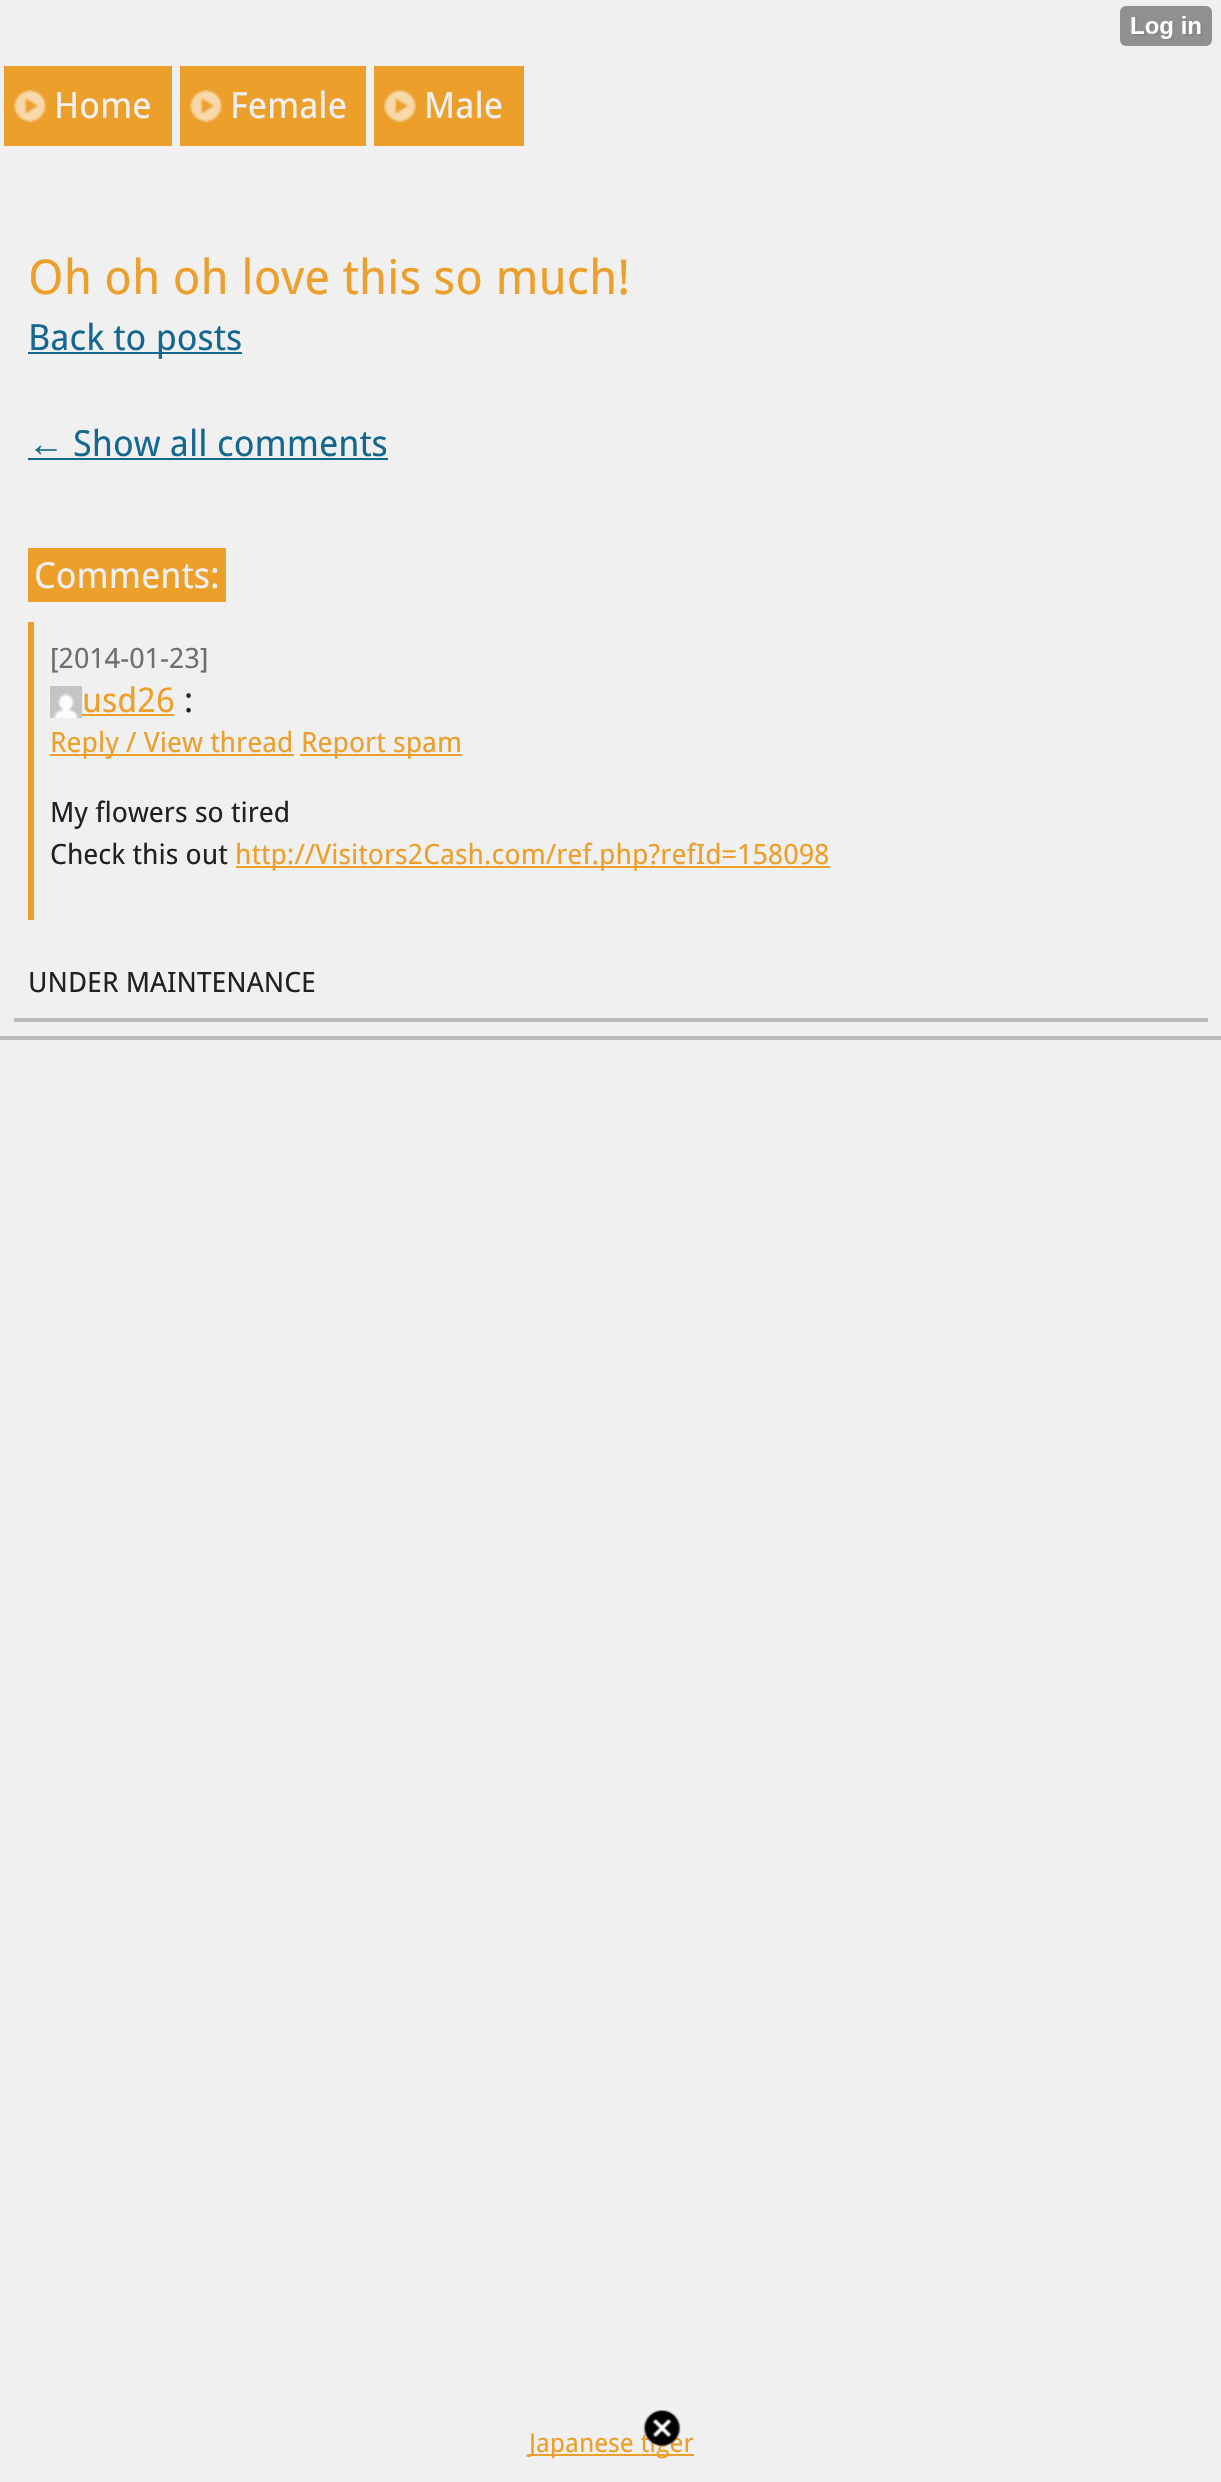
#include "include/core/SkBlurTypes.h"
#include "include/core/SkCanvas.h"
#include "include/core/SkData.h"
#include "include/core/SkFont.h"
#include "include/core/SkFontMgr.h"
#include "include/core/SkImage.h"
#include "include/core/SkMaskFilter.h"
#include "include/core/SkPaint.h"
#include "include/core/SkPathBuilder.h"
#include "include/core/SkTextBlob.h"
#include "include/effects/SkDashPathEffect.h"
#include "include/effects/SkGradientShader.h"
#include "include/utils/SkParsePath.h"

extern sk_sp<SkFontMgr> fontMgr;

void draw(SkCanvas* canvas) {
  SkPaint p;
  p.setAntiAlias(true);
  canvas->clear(SkColorSetRGB(240, 240, 240));
  canvas->drawImageRect(SkImages::DeferredFromEncodedData(SkData::MakeFromFileName("images/1.png")), SkRect::MakeLTRB(1120, 6, 1212, 46), SkSamplingOptions());
  p.setColor(SkColorSetRGB(237, 159, 43));
  canvas->drawRect(SkRect::MakeLTRB(4, 66, 172, 146), p);
  canvas->drawImageRect(SkImages::DeferredFromEncodedData(SkData::MakeFromFileName("images/2.png")), SkRect::MakeLTRB(14, 90, 46, 122), SkSamplingOptions());
  canvas->drawRect(SkRect::MakeLTRB(180, 66, 366, 146), p);
  canvas->drawImageRect(SkImages::DeferredFromEncodedData(SkData::MakeFromFileName("images/2.png")), SkRect::MakeLTRB(190, 90, 222, 122), SkSamplingOptions());
  canvas->drawRect(SkRect::MakeLTRB(374, 66, 524, 146), p);
  canvas->drawImageRect(SkImages::DeferredFromEncodedData(SkData::MakeFromFileName("images/2.png")), SkRect::MakeLTRB(384, 90, 416, 122), SkSamplingOptions());
  p.setColor(SkColorSetRGB(186, 186, 186));
  canvas->drawRect(SkRect::MakeLTRB(0, 1036, 1221, 1040), p);
  canvas->drawRect(SkRect::MakeLTRB(14, 1018, 1208, 1022), p);
  p.setColor(SkColorSetRGB(20, 104, 143));
  canvas->drawRect(SkRect::MakeLTRB(28, 352, 242, 354), p);
  canvas->drawRect(SkRect::MakeLTRB(28, 458, 388, 460), p);
  p.setColor(SkColorSetRGB(237, 159, 43));
  canvas->drawRect(SkRect::MakeLTRB(28, 548, 226, 602), p);
  canvas->drawRect(SkRect::MakeLTRB(28, 622, 34, 920), p);
  canvas->drawImageRect(SkImages::DeferredFromEncodedData(SkData::MakeFromFileName("images/3.png")), SkRect::MakeLTRB(50, 686, 82, 718), SkSamplingOptions());
  canvas->drawRect(SkRect::MakeLTRB(82, 714, 174, 716), p);
  canvas->drawRect(SkRect::MakeLTRB(50, 754, 294, 756), p);
  canvas->drawRect(SkRect::MakeLTRB(300, 754, 462, 756), p);
  canvas->drawRect(SkRect::MakeLTRB(236, 866, 830, 868), p);
  canvas->drawRect(SkRect::MakeLTRB(528, 2454, 694, 2456), p);
  SkFont font1(fontMgr->matchFamilyStyle("Droid Sans", SkFontStyle::Normal()), 36);
  font1.setSubpixel(true);
  p.setColor(SkColorSetRGB(240, 240, 240));
  canvas->drawString("Home", 54, 118, font1, p);
  canvas->drawString("Female", 230, 118, font1, p);
  canvas->drawString("Male", 424, 118, font1, p);
  SkFont font2(fontMgr->matchFamilyStyle("Droid Sans", SkFontStyle::Normal()), 48);
  font2.setSubpixel(true);
  p.setColor(SkColorSetRGB(237, 159, 43));
  canvas->drawString("Oh oh oh love this so much!", 28, 294, font2, p);
  p.setColor(SkColorSetRGB(20, 104, 143));
  canvas->drawString("Back to posts", 28, 350, font1, p);
  SkFont font3(fontMgr->matchFamilyStyle("Liberation Sans", SkFontStyle::Normal()), 36);
  font3.setSubpixel(true);
  canvas->drawString("←", 28, 456, font3, p);
  canvas->drawString("Show all comments", 73, 456, font1, p);
  p.setColor(SkColorSetRGB(240, 240, 240));
  canvas->drawString("Comments:", 34, 588, font1, p);
  SkFont font4(fontMgr->matchFamilyStyle("Droid Sans", SkFontStyle::Normal()), 28);
  font4.setSubpixel(true);
  p.setColor(SkColorSetRGB(110, 110, 110));
  canvas->drawString("[2014-01-23]", 50, 668, font4, p);
  SkFont font5(fontMgr->matchFamilyStyle("Droid Sans", SkFontStyle::Normal()), 34);
  font5.setSubpixel(true);
  p.setColor(SkColorSetRGB(237, 159, 43));
  canvas->drawString("usd26", 82, 712, font5, p);
  p.setColor(SkColorSetRGB(33, 33, 33));
  canvas->drawString(":", 184, 712, font5, p);
  p.setColor(SkColorSetRGB(237, 159, 43));
  canvas->drawString("Reply / View thread", 50, 752, font4, p);
  canvas->drawString("Report spam", 301, 752, font4, p);
  p.setColor(SkColorSetRGB(33, 33, 33));
  canvas->drawString("My flowers so tired", 50, 822, font4, p);
  canvas->drawString("Check this out", 50, 864, font4, p);
  p.setColor(SkColorSetRGB(237, 159, 43));
  canvas->drawString("http://Visitors2Cash.com/ref.php?refId=158098", 235, 864, font4, p);
  p.setColor(SkColorSetRGB(33, 33, 33));
  canvas->drawString("UNDER MAINTENANCE", 28, 992, font4, p);
  SkFont font6(fontMgr->matchFamilyStyle("Droid Sans", SkFontStyle::Normal()), 26);
  font6.setSubpixel(true);
  p.setColor(SkColorSetRGB(237, 159, 43));
  canvas->drawString("Japanese tiger", 529, 2452, font6, p);
  canvas->drawImageRect(SkImages::DeferredFromEncodedData(SkData::MakeFromFileName("images/4.png")), SkRect::MakeLTRB(643, 2410, 681, 2446), SkSamplingOptions());
}
